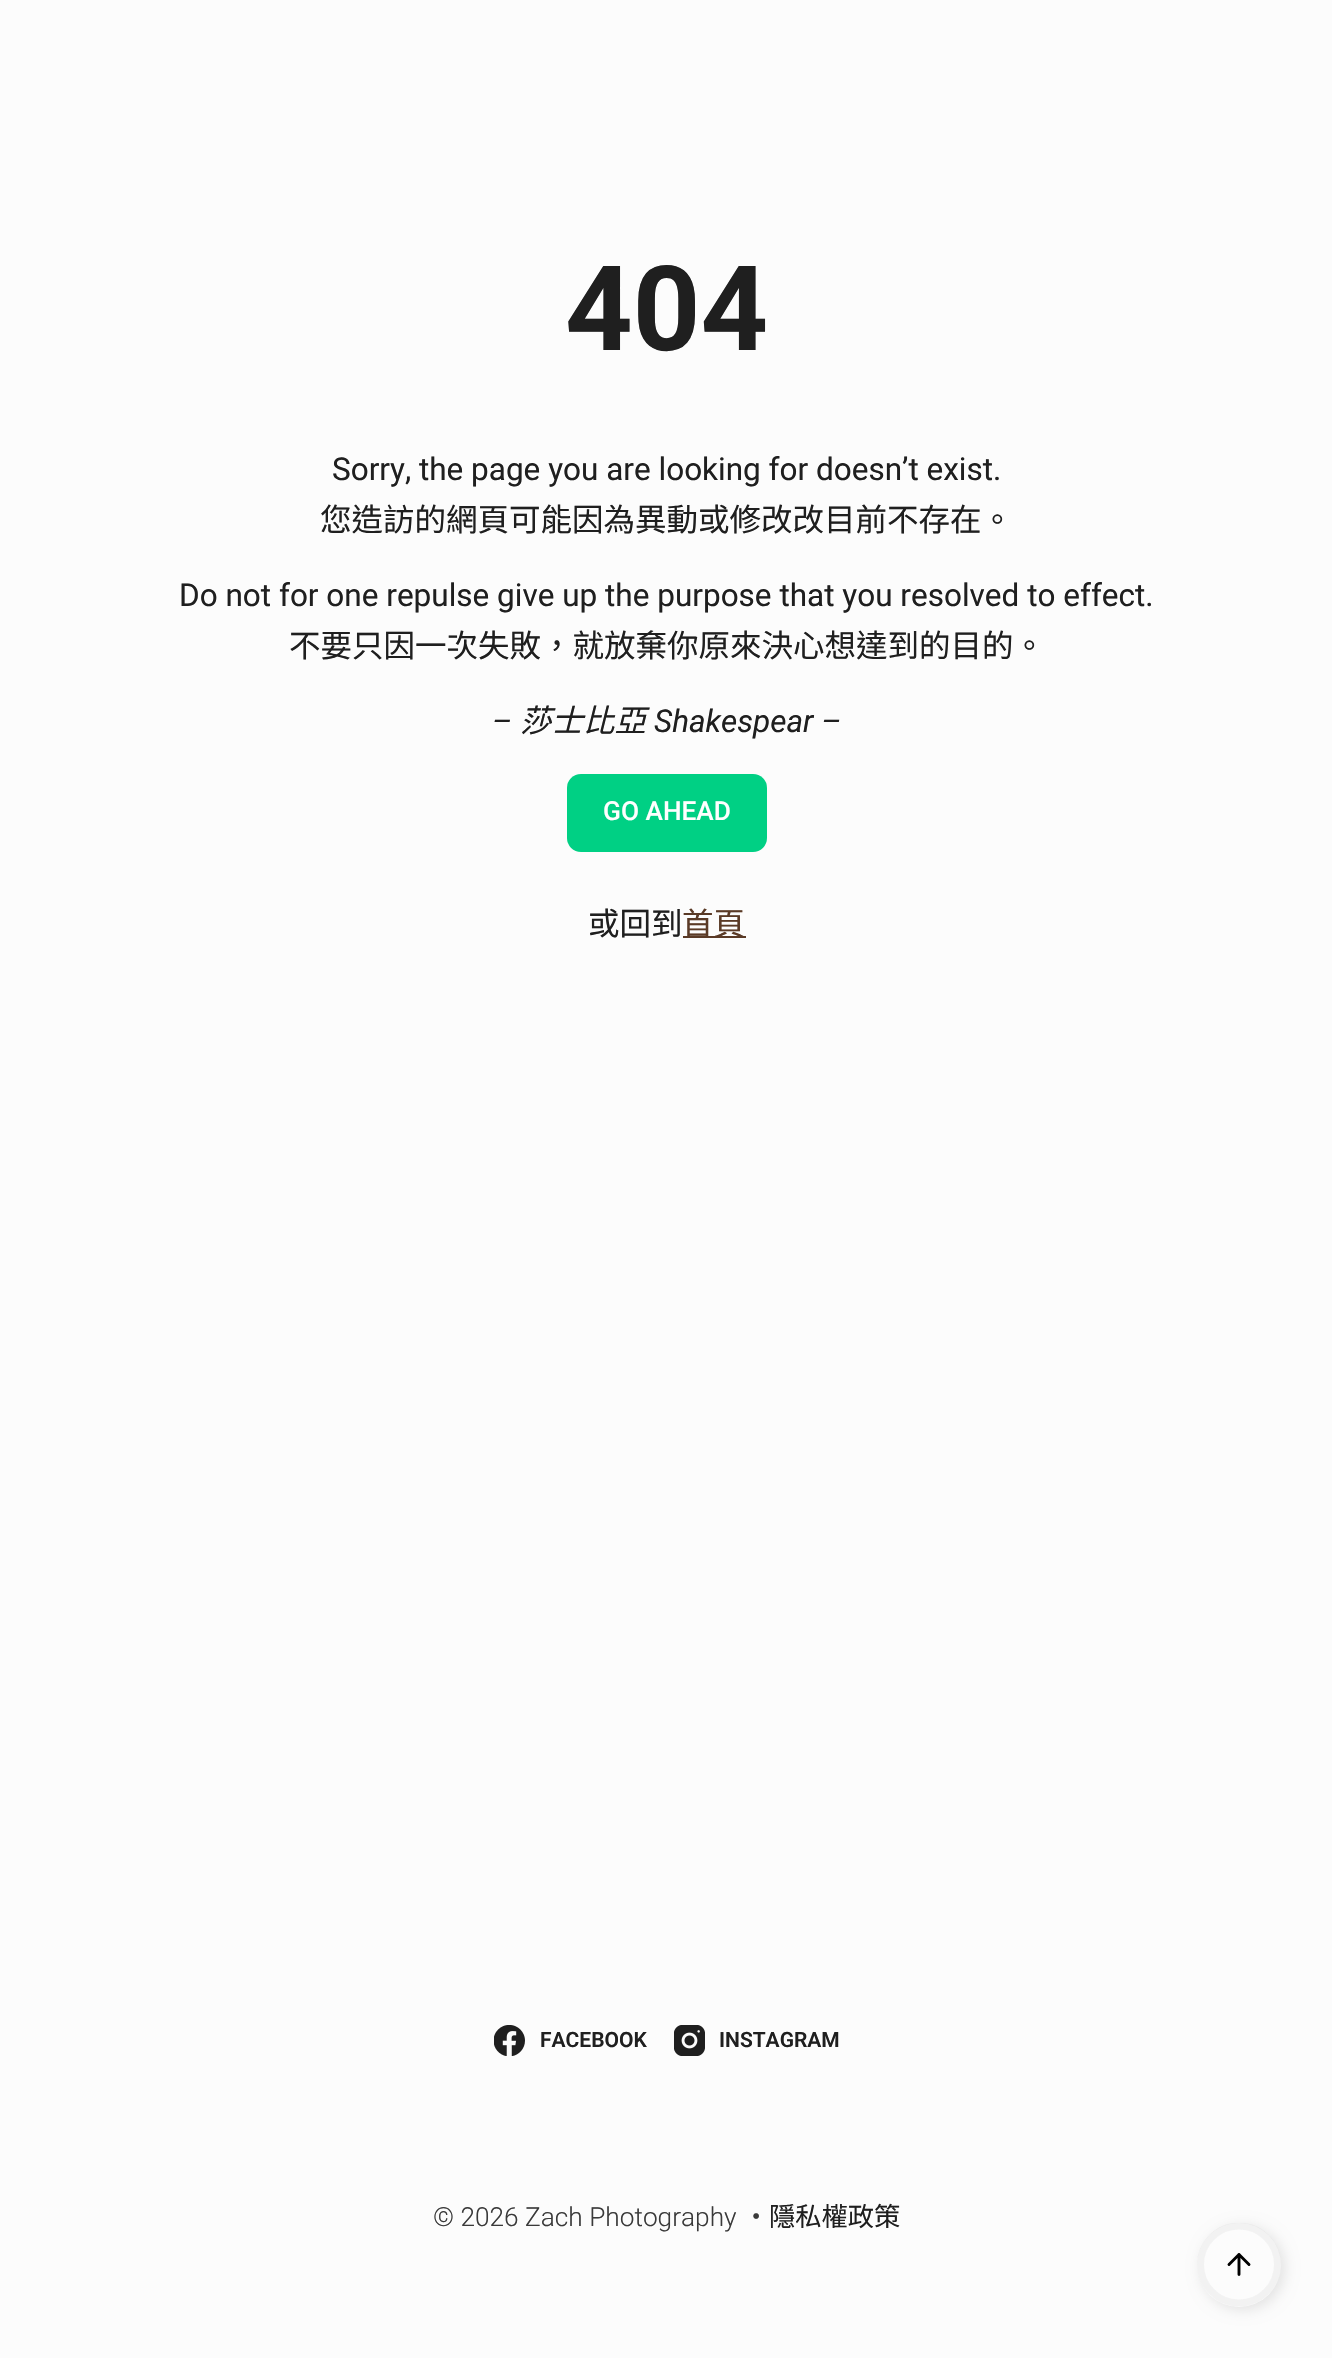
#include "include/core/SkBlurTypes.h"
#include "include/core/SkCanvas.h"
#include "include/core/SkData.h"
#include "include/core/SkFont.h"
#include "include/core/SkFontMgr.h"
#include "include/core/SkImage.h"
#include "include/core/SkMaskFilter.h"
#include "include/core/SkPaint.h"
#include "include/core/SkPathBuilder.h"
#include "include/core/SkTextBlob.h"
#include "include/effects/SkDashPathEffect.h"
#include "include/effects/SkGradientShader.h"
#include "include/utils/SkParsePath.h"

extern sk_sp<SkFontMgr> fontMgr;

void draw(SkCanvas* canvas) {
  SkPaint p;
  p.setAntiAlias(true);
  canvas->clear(SkColorSetRGB(252, 252, 252));
  p.setColor(SkColorSetRGB(0, 208, 132));
  canvas->drawRoundRect(SkRect::MakeLTRB(567, 774, 767, 852), 14, 14, p);
  p.setColor(SkColorSetRGB(90, 58, 38));
  canvas->drawRect(SkRect::MakeLTRB(683, 936, 746, 938), p);
  canvas->drawImageRect(SkImages::DeferredFromEncodedData(SkData::MakeFromFileName("images/1.png")), SkRect::MakeLTRB(494, 2025, 525, 2056), SkSamplingOptions());
  canvas->drawImageRect(SkImages::DeferredFromEncodedData(SkData::MakeFromFileName("images/2.png")), SkRect::MakeLTRB(674, 2025, 705, 2056), SkSamplingOptions());
  p.setColor(SkColorSetARGB(26, 0, 0, 0));
  p.setMaskFilter(SkMaskFilter::MakeBlur(kNormal_SkBlurStyle, 7));
  canvas->drawRoundRect(SkRect::MakeLTRB(1201, 2226, 1285, 2310), 42, 42, p);
  p.setMaskFilter(nullptr);
  p.setColor(SkColorSetRGB(252, 252, 252));
  canvas->drawCircle(1239, 2265, 42, p);
  canvas->save();
  canvas->clipRect(SkRect::MakeLTRB(1197, 2223, 1281, 2307));
  p.setStyle(SkPaint::kStroke_Style);
  p.setStrokeWidth(7);
  p.setColor(SkColorSetARGB(51, 204, 204, 204));
  canvas->drawCircle(1239, 2264.5f, 38.5f, p);
  canvas->restore();
  p.setStrokeWidth(2.9f);
  p.setStrokeCap(SkPaint::kRound_Cap);
  p.setStrokeJoin(SkPaint::kRound_Join);
  p.setColor(SK_ColorBLACK);
  canvas->drawPath(SkPathBuilder().moveTo(1229, 2264.5f).lineTo(1239, 2254.5f).lineTo(1249, 2264.5f).moveTo(1239, 2274.5f).lineTo(1239, 2254.5f).detach(), p);
  SkFont font1(fontMgr->matchFamilyStyle("Roboto", SkFontStyle::Bold()), 118);
  font1.setSubpixel(true);
  p.setStyle(SkPaint::kFill_Style);
  p.setColor(SkColorSetRGB(31, 31, 31));
  canvas->drawString("404", 565, 350, font1, p);
  SkFont font2(fontMgr->matchFamilyStyle("Roboto", SkFontStyle::Normal()), 31.5f);
  font2.setSubpixel(true);
  canvas->drawString("Sorry, the page you are looking for doesn’t exist.", 332, 480, font2, p);
  SkFont font3(fontMgr->matchFamilyStyle("Noto Sans CJK TC", SkFontStyle::Normal()), 31.5f);
  font3.setSubpixel(true);
  canvas->drawString("您造訪的網頁可能因為異動或修改改目前不存在。", 320, 531, font3, p);
  canvas->drawString("Do not for one repulse give up the purpose that you resolved to effect.", 179, 606, font2, p);
  canvas->drawString("不要只因一次失敗，就放棄你原來決心想達到的目的。", 289, 657, font3, p);
  SkFont font4(fontMgr->matchFamilyStyle("Roboto", SkFontStyle::Italic()), 31.5f);
  font4.setSubpixel(true);
  canvas->drawString("–", 492, 732, font4, p);
  SkFont font5(fontMgr->matchFamilyStyle("Noto Sans CJK TC", SkFontStyle::Italic()), 31.5f);
  font5.setSubpixel(true);
  canvas->drawString("莎士比亞", 520, 732, font5, p);
  canvas->drawString("Shakespear –", 654, 732, font4, p);
  SkFont font6(fontMgr->matchFamilyStyle("Roboto", SkFontStyle(500, SkFontStyle::kNormal_Width, SkFontStyle::kUpright_Slant)), 26.25f);
  font6.setSubpixel(true);
  p.setColor(SK_ColorWHITE);
  canvas->drawString("GO AHEAD", 603, 820, font6, p);
  p.setColor(SkColorSetRGB(31, 31, 31));
  canvas->drawString("或回到", 588, 935, font3, p);
  p.setColor(SkColorSetRGB(90, 58, 38));
  canvas->drawString("首頁", 682, 935, font3, p);
  SkFont font7(fontMgr->matchFamilyStyle("Roboto", SkFontStyle(600, SkFontStyle::kNormal_Width, SkFontStyle::kUpright_Slant)), 21);
  font7.setSubpixel(true);
  p.setColor(SkColorSetRGB(31, 31, 31));
  canvas->drawString("FACEBOOK", 540, 2047, font7, p);
  canvas->drawString("INSTAGRAM", 719, 2047, font7, p);
  SkFont font8(fontMgr->matchFamilyStyle("Roboto", SkFontStyle(300, SkFontStyle::kNormal_Width, SkFontStyle::kUpright_Slant)), 26.25f);
  font8.setSubpixel(true);
  p.setColor(SkColorSetRGB(58, 58, 58));
  canvas->drawString("© 2026 Zach Photography", 433, 2226, font8, p);
  SkFont font9(fontMgr->matchFamilyStyle("Noto Sans CJK TC", SkFontStyle::Normal()), 26.25f);
  font9.setSubpixel(true);
  canvas->drawString("・", 743, 2226, font9, p);
  p.setColor(SkColorSetRGB(31, 31, 31));
  canvas->drawString("隱私權政策", 769, 2226, font9, p);
}
